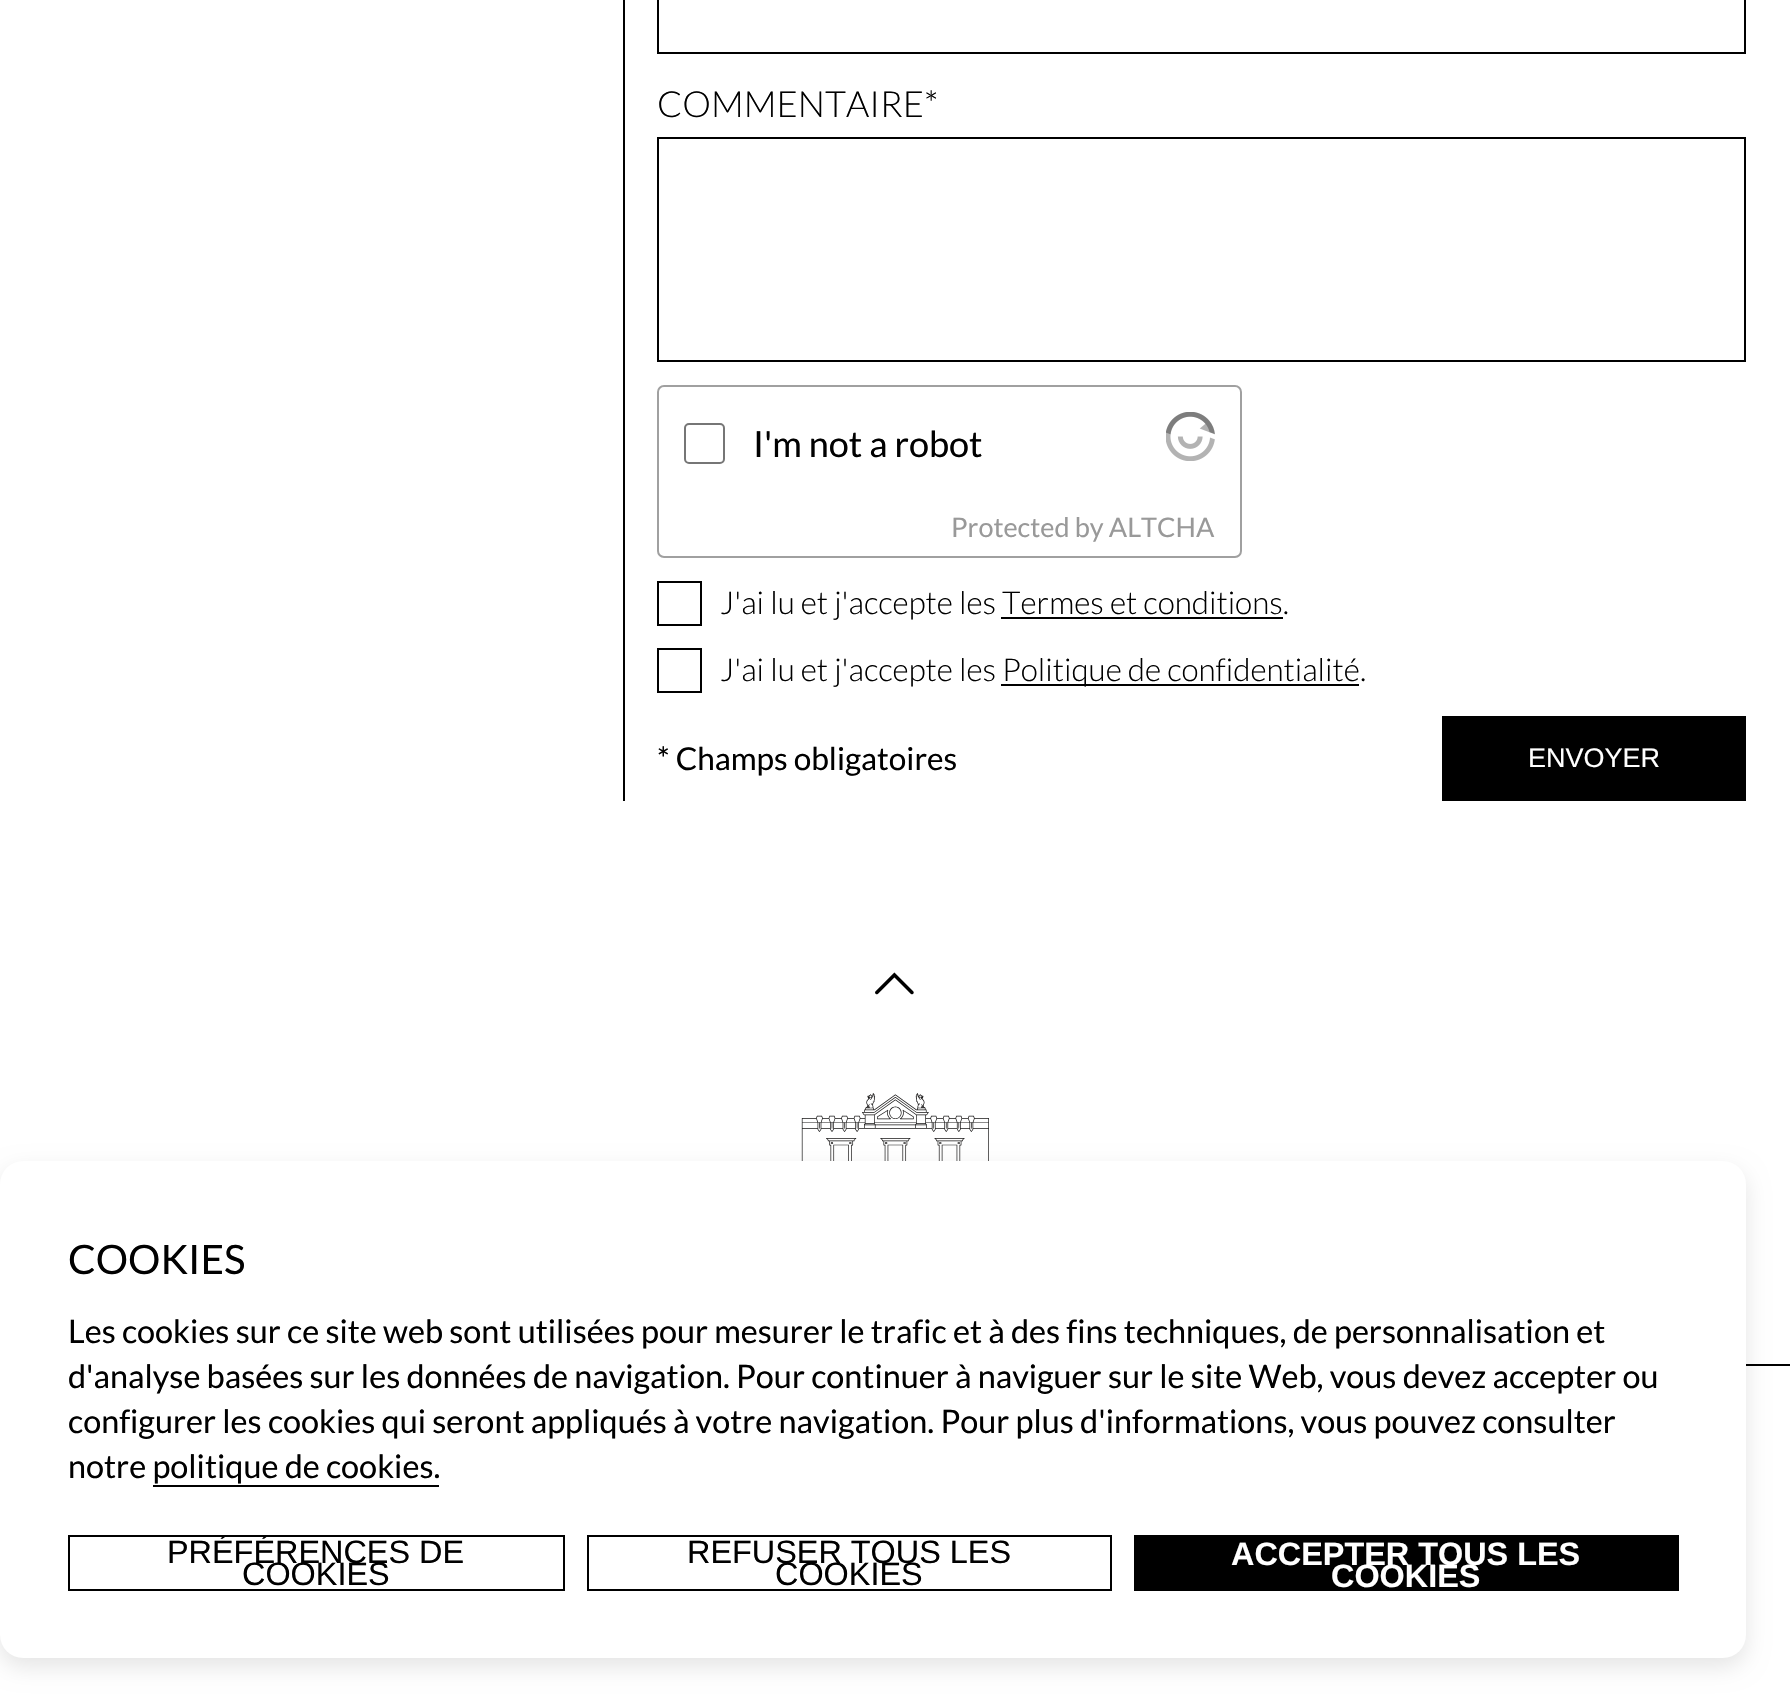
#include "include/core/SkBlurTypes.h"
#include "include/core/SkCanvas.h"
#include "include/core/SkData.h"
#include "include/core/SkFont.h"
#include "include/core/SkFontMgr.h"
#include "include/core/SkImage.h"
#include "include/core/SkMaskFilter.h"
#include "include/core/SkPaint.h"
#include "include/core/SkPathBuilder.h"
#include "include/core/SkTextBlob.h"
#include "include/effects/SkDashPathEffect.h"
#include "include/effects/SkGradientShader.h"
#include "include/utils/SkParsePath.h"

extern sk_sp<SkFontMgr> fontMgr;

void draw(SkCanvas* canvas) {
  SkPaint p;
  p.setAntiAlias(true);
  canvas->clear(SK_ColorWHITE);
  p.setColor(SK_ColorBLACK);
  canvas->drawRect(SkRect::MakeLTRB(623, 0, 625, 801), p);
  p.setStyle(SkPaint::kStroke_Style);
  p.setStrokeWidth(2);
  canvas->drawRect(SkRect::MakeLTRB(658, -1, 1745, 53), p);
  canvas->drawRect(SkRect::MakeLTRB(658, 138, 1745, 361), p);
  p.setColor(SkColorSetRGB(160, 160, 160));
  canvas->drawRoundRect(SkRect::MakeLTRB(658, 386, 1241, 557), 6, 6, p);
  p.setColor(SkColorSetRGB(118, 118, 118));
  canvas->drawRoundRect(SkRect::MakeLTRB(685, 424, 724, 463), 4, 4, p);
  canvas->drawImageRect(SkImages::DeferredFromEncodedData(SkData::MakeFromFileName("images/1.png")), SkRect::MakeLTRB(1166, 412, 1215, 461), SkSamplingOptions());
  p.setColor(SK_ColorBLACK);
  canvas->drawRect(SkRect::MakeLTRB(658, 582, 701, 625), p);
  p.setStyle(SkPaint::kFill_Style);
  canvas->drawRect(SkRect::MakeLTRB(1001, 617, 1283, 619), p);
  p.setStyle(SkPaint::kStroke_Style);
  canvas->drawRect(SkRect::MakeLTRB(658, 649, 701, 692), p);
  p.setStyle(SkPaint::kFill_Style);
  canvas->drawRect(SkRect::MakeLTRB(1001, 684, 1359, 686), p);
  canvas->drawRect(SkRect::MakeLTRB(1442, 716, 1746, 801), p);
  canvas->drawImageRect(SkImages::DeferredFromEncodedData(SkData::MakeFromFileName("images/2.png")), SkRect::MakeLTRB(875, 972, 914, 995), SkSamplingOptions());
  canvas->drawImageRect(SkImages::DeferredFromEncodedData(SkData::MakeFromFileName("images/3.png")), SkRect::MakeLTRB(801, 1093, 989, 1161), SkSamplingOptions());
  canvas->drawRect(SkRect::MakeLTRB(1746, 1364, 1790, 1366), p);
  p.setColor(SkColorSetARGB(26, 0, 0, 0));
  p.setMaskFilter(SkMaskFilter::MakeBlur(kNormal_SkBlurStyle, 11));
  canvas->drawRoundRect(SkRect::MakeLTRB(0, 1170, 1746, 1667), 23, 23, p);
  p.setMaskFilter(nullptr);
  p.setColor(SK_ColorWHITE);
  canvas->drawRoundRect(SkRect::MakeLTRB(0, 1161, 1746, 1658), 23, 23, p);
  p.setColor(SK_ColorBLACK);
  canvas->drawRect(SkRect::MakeLTRB(153, 1485, 439, 1487), p);
  p.setStyle(SkPaint::kStroke_Style);
  canvas->drawRect(SkRect::MakeLTRB(69, 1536, 564, 1590), p);
  canvas->drawRect(SkRect::MakeLTRB(588, 1536, 1111, 1590), p);
  p.setStyle(SkPaint::kFill_Style);
  canvas->drawRect(SkRect::MakeLTRB(1134, 1535, 1679, 1591), p);
  SkFont font1(fontMgr->matchFamilyStyle("Lato", SkFontStyle(300, SkFontStyle::kNormal_Width, SkFontStyle::kUpright_Slant)), 36);
  font1.setSubpixel(true);
  canvas->drawString("COMMENTAIRE*", 657, 117, font1, p);
  SkFont font2(fontMgr->matchFamilyStyle("Lato", SkFontStyle::Normal()), 36);
  font2.setSubpixel(true);
  canvas->drawString("I'm not a robot", 753, 457, font2, p);
  SkFont font3(fontMgr->matchFamilyStyle("Lato", SkFontStyle::Normal()), 27);
  font3.setSubpixel(true);
  p.setColor(SkColorSetRGB(153, 153, 153));
  canvas->drawString("Protected by ALTCHA", 951, 537, font3, p);
  SkFont font4(fontMgr->matchFamilyStyle("Lato", SkFontStyle(300, SkFontStyle::kNormal_Width, SkFontStyle::kUpright_Slant)), 31.5f);
  font4.setSubpixel(true);
  p.setColor(SK_ColorBLACK);
  canvas->drawString("J'ai lu et j'accepte les Termes et conditions.", 720, 614, font4, p);
  canvas->drawString("J'ai lu et j'accepte les", 720, 681, font4, p);
  canvas->drawString("Politique de confidentialité.", 1002, 681, font4, p);
  SkFont font5(fontMgr->matchFamilyStyle("Lato", SkFontStyle::Normal()), 31.5f);
  font5.setSubpixel(true);
  canvas->drawString("* Champs obligatoires", 657, 770, font5, p);
  SkFont font6(fontMgr->matchFamilyStyle("Liberation Sans", SkFontStyle::Normal()), 27);
  font6.setSubpixel(true);
  p.setColor(SK_ColorWHITE);
  canvas->drawString("ENVOYER", 1528, 767, font6, p);
  SkFont font7(fontMgr->matchFamilyStyle("Lato", SkFontStyle::Normal()), 40.5f);
  font7.setSubpixel(true);
  p.setColor(SK_ColorBLACK);
  canvas->drawString("COOKIES", 68, 1274, font7, p);
  SkFont font8(fontMgr->matchFamilyStyle("Lato", SkFontStyle::Normal()), 32.4f);
  font8.setSubpixel(true);
  canvas->drawString("Les cookies sur ce site web sont utilisées pour mesurer le trafic et à des fins techniques, de personnalisation et", 68, 1343, font8, p);
  canvas->drawString("d'analyse basées sur les données de navigation. Pour continuer à naviguer sur le site Web, vous devez accepter ou", 68, 1388, font8, p);
  canvas->drawString("configurer les cookies qui seront appliqués à votre navigation. Pour plus d'informations, vous pouvez consulter", 68, 1433, font8, p);
  canvas->drawString("notre politique de cookies.", 68, 1478, font8, p);
  SkFont font9(fontMgr->matchFamilyStyle("Liberation Sans", SkFontStyle::Normal()), 32.4f);
  font9.setSubpixel(true);
  canvas->drawString("PRÉFÉRENCES DE", 167, 1563, font9, p);
  canvas->drawString("COOKIES", 242, 1585, font9, p);
  canvas->drawString("REFUSER TOUS LES", 687, 1563, font9, p);
  canvas->drawString("COOKIES", 775, 1585, font9, p);
  SkFont font10(fontMgr->matchFamilyStyle("Liberation Sans", SkFontStyle::Bold()), 32.4f);
  font10.setSubpixel(true);
  p.setColor(SK_ColorWHITE);
  canvas->drawString("ACCEPTER TOUS LES", 1231, 1565, font10, p);
  canvas->drawString("COOKIES", 1331, 1587, font10, p);
}
